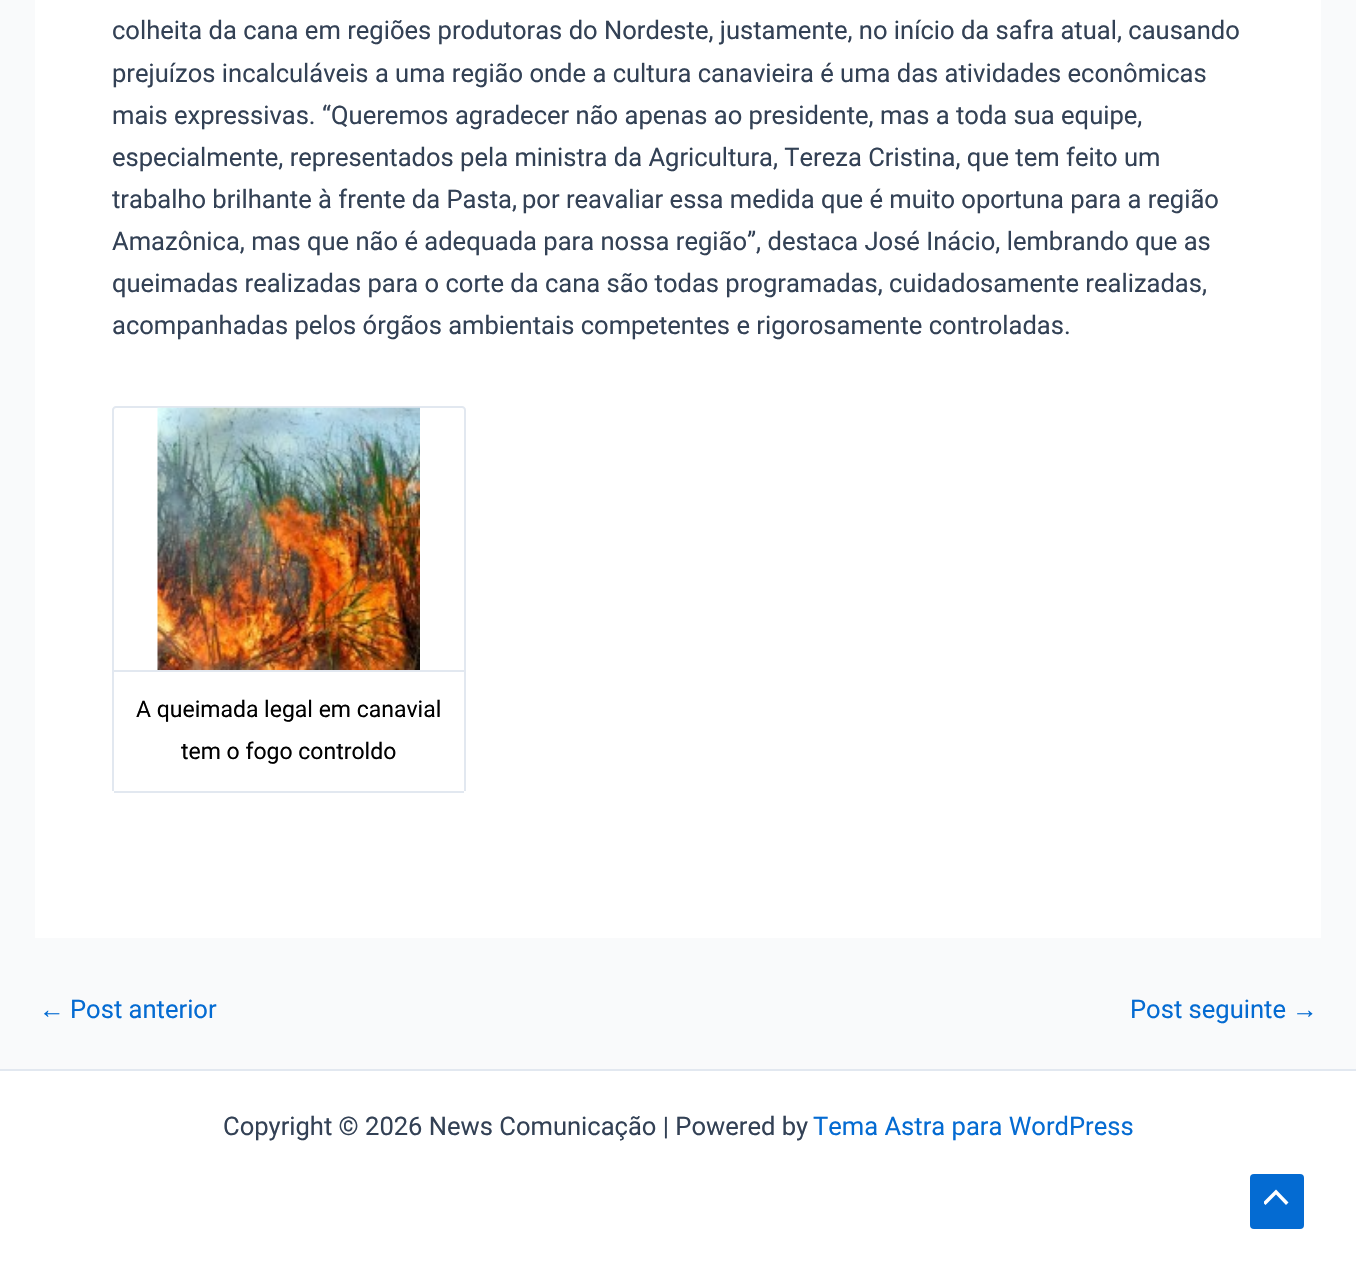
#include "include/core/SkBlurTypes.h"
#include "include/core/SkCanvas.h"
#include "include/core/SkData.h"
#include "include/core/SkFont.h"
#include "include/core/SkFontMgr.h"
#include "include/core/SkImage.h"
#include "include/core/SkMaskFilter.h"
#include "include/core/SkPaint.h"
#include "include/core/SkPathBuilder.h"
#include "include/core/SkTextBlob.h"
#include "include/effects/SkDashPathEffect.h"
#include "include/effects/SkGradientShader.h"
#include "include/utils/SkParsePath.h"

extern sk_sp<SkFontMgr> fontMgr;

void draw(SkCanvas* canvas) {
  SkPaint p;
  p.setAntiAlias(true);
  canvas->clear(SkColorSetRGB(249, 250, 251));
  p.setColor(SK_ColorWHITE);
  canvas->drawRect(SkRect::MakeLTRB(35, 0, 1321, 938), p);
  p.setStyle(SkPaint::kStroke_Style);
  p.setStrokeWidth(2);
  p.setColor(SkColorSetRGB(226, 232, 240));
  canvas->drawPath(SkPathBuilder().moveTo(116, 407).lineTo(462, 407).cubicTo(463.5f, 407, 465, 408.5f, 465, 410).lineTo(465, 671).lineTo(113, 671).lineTo(113, 410).cubicTo(113, 408.5f, 114.5f, 407, 116, 407).close().detach(), p);
  canvas->drawImageRect(SkImages::DeferredFromEncodedData(SkData::MakeFromFileName("images/1.png")), SkRect::MakeLTRB(157, 407, 420, 670), SkSamplingOptions());
  p.setStyle(SkPaint::kFill_Style);
  canvas->drawRect(SkRect::MakeLTRB(464, 672, 466, 791), p);
  canvas->drawRect(SkRect::MakeLTRB(114, 791, 464, 793), p);
  canvas->drawRect(SkRect::MakeLTRB(112, 672, 114, 791), p);
  p.setColor(SK_ColorWHITE);
  canvas->drawRect(SkRect::MakeLTRB(0, 1071, 1356, 1280), p);
  p.setColor(SkColorSetRGB(226, 232, 240));
  canvas->drawRect(SkRect::MakeLTRB(0, 1069, 1356, 1071), p);
  p.setColor(SkColorSetRGB(4, 107, 210));
  canvas->drawRoundRect(SkRect::MakeLTRB(1250, 1174, 1304, 1229), 4, 4, p);
  canvas->save();
  canvas->clipRect(SkRect::MakeLTRB(1264, 1187, 1290, 1208));
  p.setColor(SK_ColorWHITE);
  canvas->drawPath(SkPathBuilder().moveTo(1288.5f, 1202.5f).lineTo(1276, 1189.5f).lineTo(1263, 1202.5f).lineTo(1265.5f, 1205).lineTo(1276, 1194.5f).lineTo(1286, 1205).close().detach(), p);
  canvas->restore();
  SkFont font1(fontMgr->matchFamilyStyle("Roboto", SkFontStyle::Normal()), 25.55f);
  font1.setSubpixel(true);
  p.setColor(SkColorSetRGB(51, 65, 85));
  canvas->drawString("colheita da cana em regiões produtoras do Nordeste, justamente, no início da safra atual, causando", 112, 39, font1, p);
  canvas->drawString("prejuízos incalculáveis a uma região onde a cultura canavieira é uma das atividades econômicas", 112, 82, font1, p);
  canvas->drawString("mais expressivas. “Queremos agradecer não apenas ao presidente, mas a toda sua equipe,", 112, 124, font1, p);
  canvas->drawString("especialmente, representados pela ministra da Agricultura, Tereza Cristina, que tem feito um", 112, 166, font1, p);
  canvas->drawString("trabalho brilhante à frente da Pasta,", 112, 208, font1, p);
  canvas->drawString("por reavaliar essa medida que é muito oportuna para a região", 522, 208, font1, p);
  canvas->drawString("Amazônica, mas que não é adequada para nossa região”, destaca José Inácio, lembrando que as", 112, 250, font1, p);
  canvas->drawString("queimadas realizadas para o corte da cana são todas programadas, cuidadosamente realizadas,", 112, 292, font1, p);
  canvas->drawString("acompanhadas pelos órgãos ambientais competentes e rigorosamente controladas.", 112, 334, font1, p);
  SkFont font2(fontMgr->matchFamilyStyle("Roboto", SkFontStyle::Normal()), 23);
  font2.setSubpixel(true);
  p.setColor(SK_ColorBLACK);
  canvas->drawString("A queimada legal em canavial", 136, 717, font2, p);
  canvas->drawString("tem o fogo controldo", 181, 759, font2, p);
  SkFont font3(fontMgr->matchFamilyStyle("Liberation Sans", SkFontStyle::Normal()), 25.55f);
  font3.setSubpixel(true);
  p.setColor(SkColorSetRGB(4, 107, 210));
  canvas->drawString("←", 39, 1018, font3, p);
  canvas->drawString("Post anterior", 70, 1018, font1, p);
  canvas->drawString("Post seguinte", 1130, 1018, font1, p);
  canvas->drawString("→", 1292, 1018, font3, p);
  p.setColor(SkColorSetRGB(51, 65, 85));
  canvas->drawString("Copyright © 2026 News Comunicação | Powered by", 223, 1135, font1, p);
  p.setColor(SkColorSetRGB(4, 107, 210));
  canvas->drawString("Tema Astra para WordPress", 813, 1135, font1, p);
}
